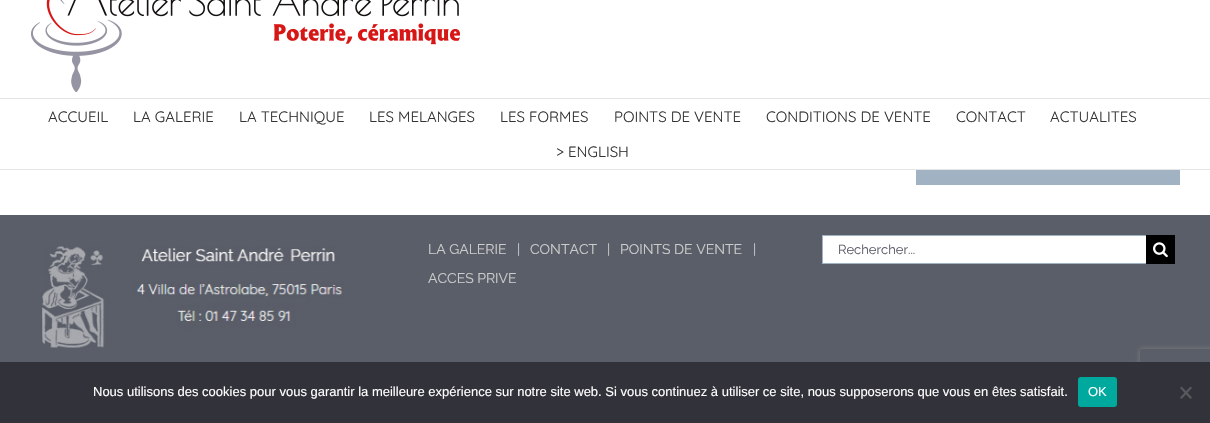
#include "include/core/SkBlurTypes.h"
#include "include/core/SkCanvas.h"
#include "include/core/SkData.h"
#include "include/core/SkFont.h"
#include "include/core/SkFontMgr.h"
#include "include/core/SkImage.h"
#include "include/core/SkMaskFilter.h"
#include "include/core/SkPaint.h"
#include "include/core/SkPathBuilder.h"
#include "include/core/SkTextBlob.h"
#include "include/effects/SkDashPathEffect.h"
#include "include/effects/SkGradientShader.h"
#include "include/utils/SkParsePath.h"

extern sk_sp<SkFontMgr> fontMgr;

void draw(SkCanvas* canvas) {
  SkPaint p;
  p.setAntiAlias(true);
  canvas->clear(SK_ColorWHITE);
  p.setColor(SkColorSetRGB(229, 229, 229));
  canvas->drawRect(SkRect::MakeLTRB(0, 98, 1210, 99), p);
  canvas->drawImageRect(SkImages::DeferredFromEncodedData(SkData::MakeFromFileName("images/1.png")), SkRect::MakeLTRB(31, 0, 460, 92), SkSamplingOptions());
  canvas->drawRect(SkRect::MakeLTRB(0, 169, 1210, 170), p);
  p.setColor(SkColorSetRGB(161, 179, 194));
  canvas->drawRect(SkRect::MakeLTRB(916, 170, 1180, 185), p);
  p.setColor(SkColorSetRGB(90, 94, 104));
  canvas->drawRect(SkRect::MakeLTRB(0, 215, 1210, 362), p);
  canvas->drawImageRect(SkImages::DeferredFromEncodedData(SkData::MakeFromFileName("images/2.png")), SkRect::MakeLTRB(42, 246, 344, 348), SkSamplingOptions());
  p.setColor(SK_ColorWHITE);
  canvas->drawRect(SkRect::MakeLTRB(823, 236, 1146, 263), p);
  p.setColor(SkColorSetRGB(161, 179, 194));
  canvas->drawRect(SkRect::MakeLTRB(822, 235, 1146, 236), p);
  canvas->drawRect(SkRect::MakeLTRB(822, 263, 1146, 264), p);
  canvas->drawRect(SkRect::MakeLTRB(822, 235, 823, 264), p);
  p.setColor(SK_ColorBLACK);
  canvas->drawRect(SkRect::MakeLTRB(1146, 235, 1175, 264), p);
  canvas->drawImageRect(SkImages::DeferredFromEncodedData(SkData::MakeFromFileName("images/3.png")), SkRect::MakeLTRB(1153, 242, 1168, 258), SkSamplingOptions());
  canvas->save();
  canvas->clipPath(SkPathBuilder(SkPathFillType::kEvenOdd).moveTo(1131, 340).lineTo(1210, 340).lineTo(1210, 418).lineTo(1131, 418).close().moveTo(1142, 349).lineTo(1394, 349).cubicTo(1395, 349, 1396, 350, 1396, 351).lineTo(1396, 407).cubicTo(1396, 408, 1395, 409, 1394, 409).lineTo(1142, 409).cubicTo(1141, 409, 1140, 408, 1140, 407).lineTo(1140, 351).cubicTo(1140, 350, 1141, 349, 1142, 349).close().detach(), true);
  p.setColor(SkColorSetRGB(128, 128, 128));
  p.setMaskFilter(SkMaskFilter::MakeBlur(kNormal_SkBlurStyle, 2.5f));
  canvas->drawRoundRect(SkRect::MakeLTRB(1140, 349, 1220, 409), 2, 2, p);
  p.setMaskFilter(nullptr);
  canvas->restore();
  p.setColor(SkColorSetRGB(50, 50, 58));
  canvas->drawRect(SkRect::MakeLTRB(0, 362, 1210, 423), p);
  p.setColor(SkColorSetRGB(0, 169, 157));
  canvas->drawRoundRect(SkRect::MakeLTRB(1078, 377, 1117, 407), 3, 3, p);
  p.setColor(SkColorSetRGB(89, 89, 93));
  canvas->drawPath(SkPathBuilder().moveTo(1190.5f, 386.5f).lineTo(1192, 388).lineTo(1181.5f, 399).lineTo(1180, 397.5f).close().detach(), p);
  canvas->drawPath(SkPathBuilder().moveTo(1180, 388).lineTo(1181.5f, 386.5f).lineTo(1192, 397.5f).lineTo(1190.5f, 399).close().detach(), p);
  SkFont font1(fontMgr->matchFamilyStyle("Quicksand", SkFontStyle::Normal()), 15);
  font1.setSubpixel(true);
  p.setColor(SkColorSetRGB(51, 51, 51));
  canvas->drawString("ACCUEIL", 48, 122, font1, p);
  canvas->drawString("LA GALERIE", 133, 122, font1, p);
  canvas->drawString("LA TECHNIQUE", 239, 122, font1, p);
  canvas->drawString("LES MELANGES", 369, 122, font1, p);
  canvas->drawString("LES FORMES", 500, 122, font1, p);
  canvas->drawString("POINTS DE VENTE", 614, 122, font1, p);
  canvas->drawString("CONDITIONS DE VENTE", 766, 122, font1, p);
  canvas->drawString("CONTACT", 956, 122, font1, p);
  canvas->drawString("ACTUALITES", 1050, 122, font1, p);
  canvas->drawString("> ENGLISH", 556, 157, font1, p);
  SkFont font2(fontMgr->matchFamilyStyle("Raleway", SkFontStyle::Normal()), 14);
  font2.setSubpixel(true);
  p.setColor(SkColorSetRGB(204, 204, 204));
  canvas->drawString("LA GALERIE", 428, 254, font2, p);
  canvas->drawString("|", 517, 254, font2, p);
  canvas->drawString("CONTACT", 530, 254, font2, p);
  canvas->drawString("|", 607, 254, font2, p);
  canvas->drawString("POINTS DE VENTE", 620, 254, font2, p);
  canvas->drawString("|", 753, 254, font2, p);
  canvas->drawString("ACCES PRIVE", 428, 283, font2, p);
  SkFont font3(fontMgr->matchFamilyStyle("Raleway", SkFontStyle::Normal()), 13);
  font3.setSubpixel(true);
  p.setColor(SkColorSetRGB(90, 94, 104));
  canvas->drawString("Rechercher...", 838, 254, font3, p);
  SkFont font4(fontMgr->matchFamilyStyle("Liberation Sans", SkFontStyle::Normal()), 13);
  font4.setSubpixel(true);
  p.setColor(SK_ColorWHITE);
  canvas->drawString("Nous utilisons des cookies pour vous garantir la meilleure expérience sur notre site web. Si vous continuez à utiliser ce site, nous supposerons que vous en êtes satisfait.", 93, 396, font4, p);
  canvas->drawString("OK", 1088, 396, font4, p);
}
